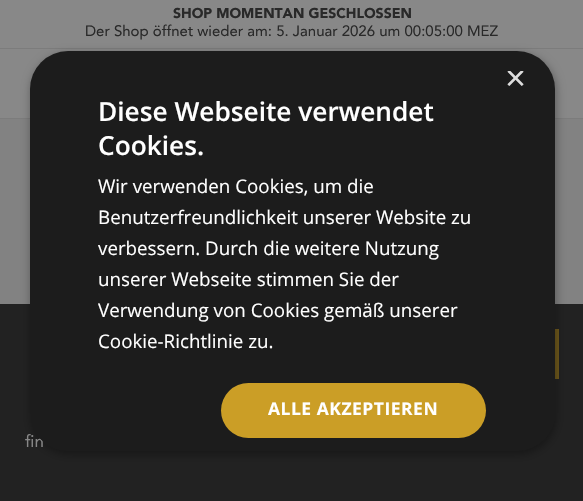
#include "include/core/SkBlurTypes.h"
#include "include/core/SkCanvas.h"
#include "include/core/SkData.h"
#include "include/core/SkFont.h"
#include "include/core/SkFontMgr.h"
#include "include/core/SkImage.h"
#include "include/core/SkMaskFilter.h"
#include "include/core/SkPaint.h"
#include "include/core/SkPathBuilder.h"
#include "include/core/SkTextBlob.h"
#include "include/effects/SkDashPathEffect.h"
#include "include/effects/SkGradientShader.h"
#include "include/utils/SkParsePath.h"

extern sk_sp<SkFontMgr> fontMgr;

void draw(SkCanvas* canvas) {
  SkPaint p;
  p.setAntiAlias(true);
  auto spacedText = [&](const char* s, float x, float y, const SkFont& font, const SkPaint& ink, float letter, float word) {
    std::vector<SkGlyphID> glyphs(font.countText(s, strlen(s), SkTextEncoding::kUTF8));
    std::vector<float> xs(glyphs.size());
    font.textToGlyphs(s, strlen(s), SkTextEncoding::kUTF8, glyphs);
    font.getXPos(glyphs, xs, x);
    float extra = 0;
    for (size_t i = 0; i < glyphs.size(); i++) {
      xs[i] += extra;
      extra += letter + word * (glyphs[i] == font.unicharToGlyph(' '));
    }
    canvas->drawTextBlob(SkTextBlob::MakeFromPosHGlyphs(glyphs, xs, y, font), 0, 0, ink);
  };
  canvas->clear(SkColorSetRGB(130, 130, 130));
  p.setColor(SkColorSetRGB(136, 136, 136));
  canvas->drawRect(SkRect::MakeLTRB(0, 0, 583, 118), p);
  p.setColor(SkColorSetRGB(124, 124, 124));
  canvas->drawRect(SkRect::MakeLTRB(0, 118, 583, 119), p);
  canvas->drawRect(SkRect::MakeLTRB(0, 48, 583, 49), p);
  p.setColor(SkColorSetRGB(34, 34, 34));
  canvas->drawRect(SkRect::MakeLTRB(0, 304, 583, 501), p);
  p.setColor(SkColorSetRGB(110, 88, 28));
  canvas->drawRect(SkRect::MakeLTRB(555, 329, 559, 379), p);
  p.setColor(SkColorSetARGB(89, 0, 0, 0));
  p.setMaskFilter(SkMaskFilter::MakeBlur(kNormal_SkBlurStyle, 5));
  canvas->drawRoundRect(SkRect::MakeLTRB(31, 54, 556, 454), 38, 38, p);
  p.setMaskFilter(nullptr);
  SkFont font1(fontMgr->matchFamilyStyle("Avenir", SkFontStyle(900, SkFontStyle::kNormal_Width, SkFontStyle::kUpright_Slant)), 14);
  font1.setSubpixel(true);
  p.setColor(SkColorSetRGB(41, 41, 41));
  canvas->drawString("SHOP MOMENTAN GESCHLOSSEN", 173, 18, font1, p);
  SkFont font2(fontMgr->matchFamilyStyle("Avenir", SkFontStyle::Normal()), 15);
  font2.setSubpixel(true);
  canvas->drawString("Der Shop öffnet wieder am: 5. Januar 2026 um 00:05:00 MEZ", 85, 36, font2, p);
  SkFont font3(fontMgr->matchFamilyStyle("Avenir", SkFontStyle::Normal()), 17);
  font3.setSubpixel(true);
  p.setColor(SkColorSetRGB(136, 136, 136));
  canvas->drawString("fin", 25, 447, font3, p);
  p.setColor(SkColorSetRGB(28, 28, 28));
  canvas->drawRoundRect(SkRect::MakeLTRB(30, 51, 555, 451), 38, 38, p);
  canvas->save();
  canvas->clipRect(SkRect::MakeLTRB(505, 71, 524, 90));
  SkFont font4(fontMgr->matchFamilyStyle("Liberation Sans", SkFontStyle::Normal()), 36);
  font4.setSubpixel(true);
  p.setColor(SkColorSetRGB(221, 221, 221));
  canvas->drawString("×", 505, 90, font4, p);
  canvas->restore();
  SkFont font5(fontMgr->matchFamilyStyle("Open Sans", SkFontStyle(600, SkFontStyle::kNormal_Width, SkFontStyle::kUpright_Slant)), 26.25f);
  font5.setSubpixel(true);
  p.setColor(SK_ColorWHITE);
  canvas->drawString("Cookies.", 98, 155, font5, p);
  canvas->drawString("Diese Webseite verwendet", 98, 121, font5, p);
  p.setColor(SkColorSetRGB(203, 158, 38));
  canvas->drawRoundRect(SkRect::MakeLTRB(221, 383, 486, 438), 27.5f, 27.5f, p);
  SkFont font6(fontMgr->matchFamilyStyle("Open Sans", SkFontStyle::Bold()), 17.5f);
  font6.setSubpixel(true);
  p.setColor(SK_ColorWHITE);
  spacedText("ALLE AKZEPTIEREN", 268, 415, font6, p, 0.5f, 0);
  SkFont font7(fontMgr->matchFamilyStyle("Open Sans", SkFontStyle::Normal()), 18.75f);
  font7.setSubpixel(true);
  canvas->drawString("Cookie-Richtlinie zu.", 98, 348, font7, p);
  canvas->drawString("Verwendung von Cookies gemäß unserer", 98, 317, font7, p);
  canvas->drawString("unserer Webseite stimmen Sie der", 98, 286, font7, p);
  canvas->drawString("verbessern. Durch die weitere Nutzung", 98, 255, font7, p);
  canvas->drawString("Benutzerfreundlichkeit unserer Website zu", 98, 224, font7, p);
  canvas->drawString("Wir verwenden Cookies, um die", 98, 193, font7, p);
}
